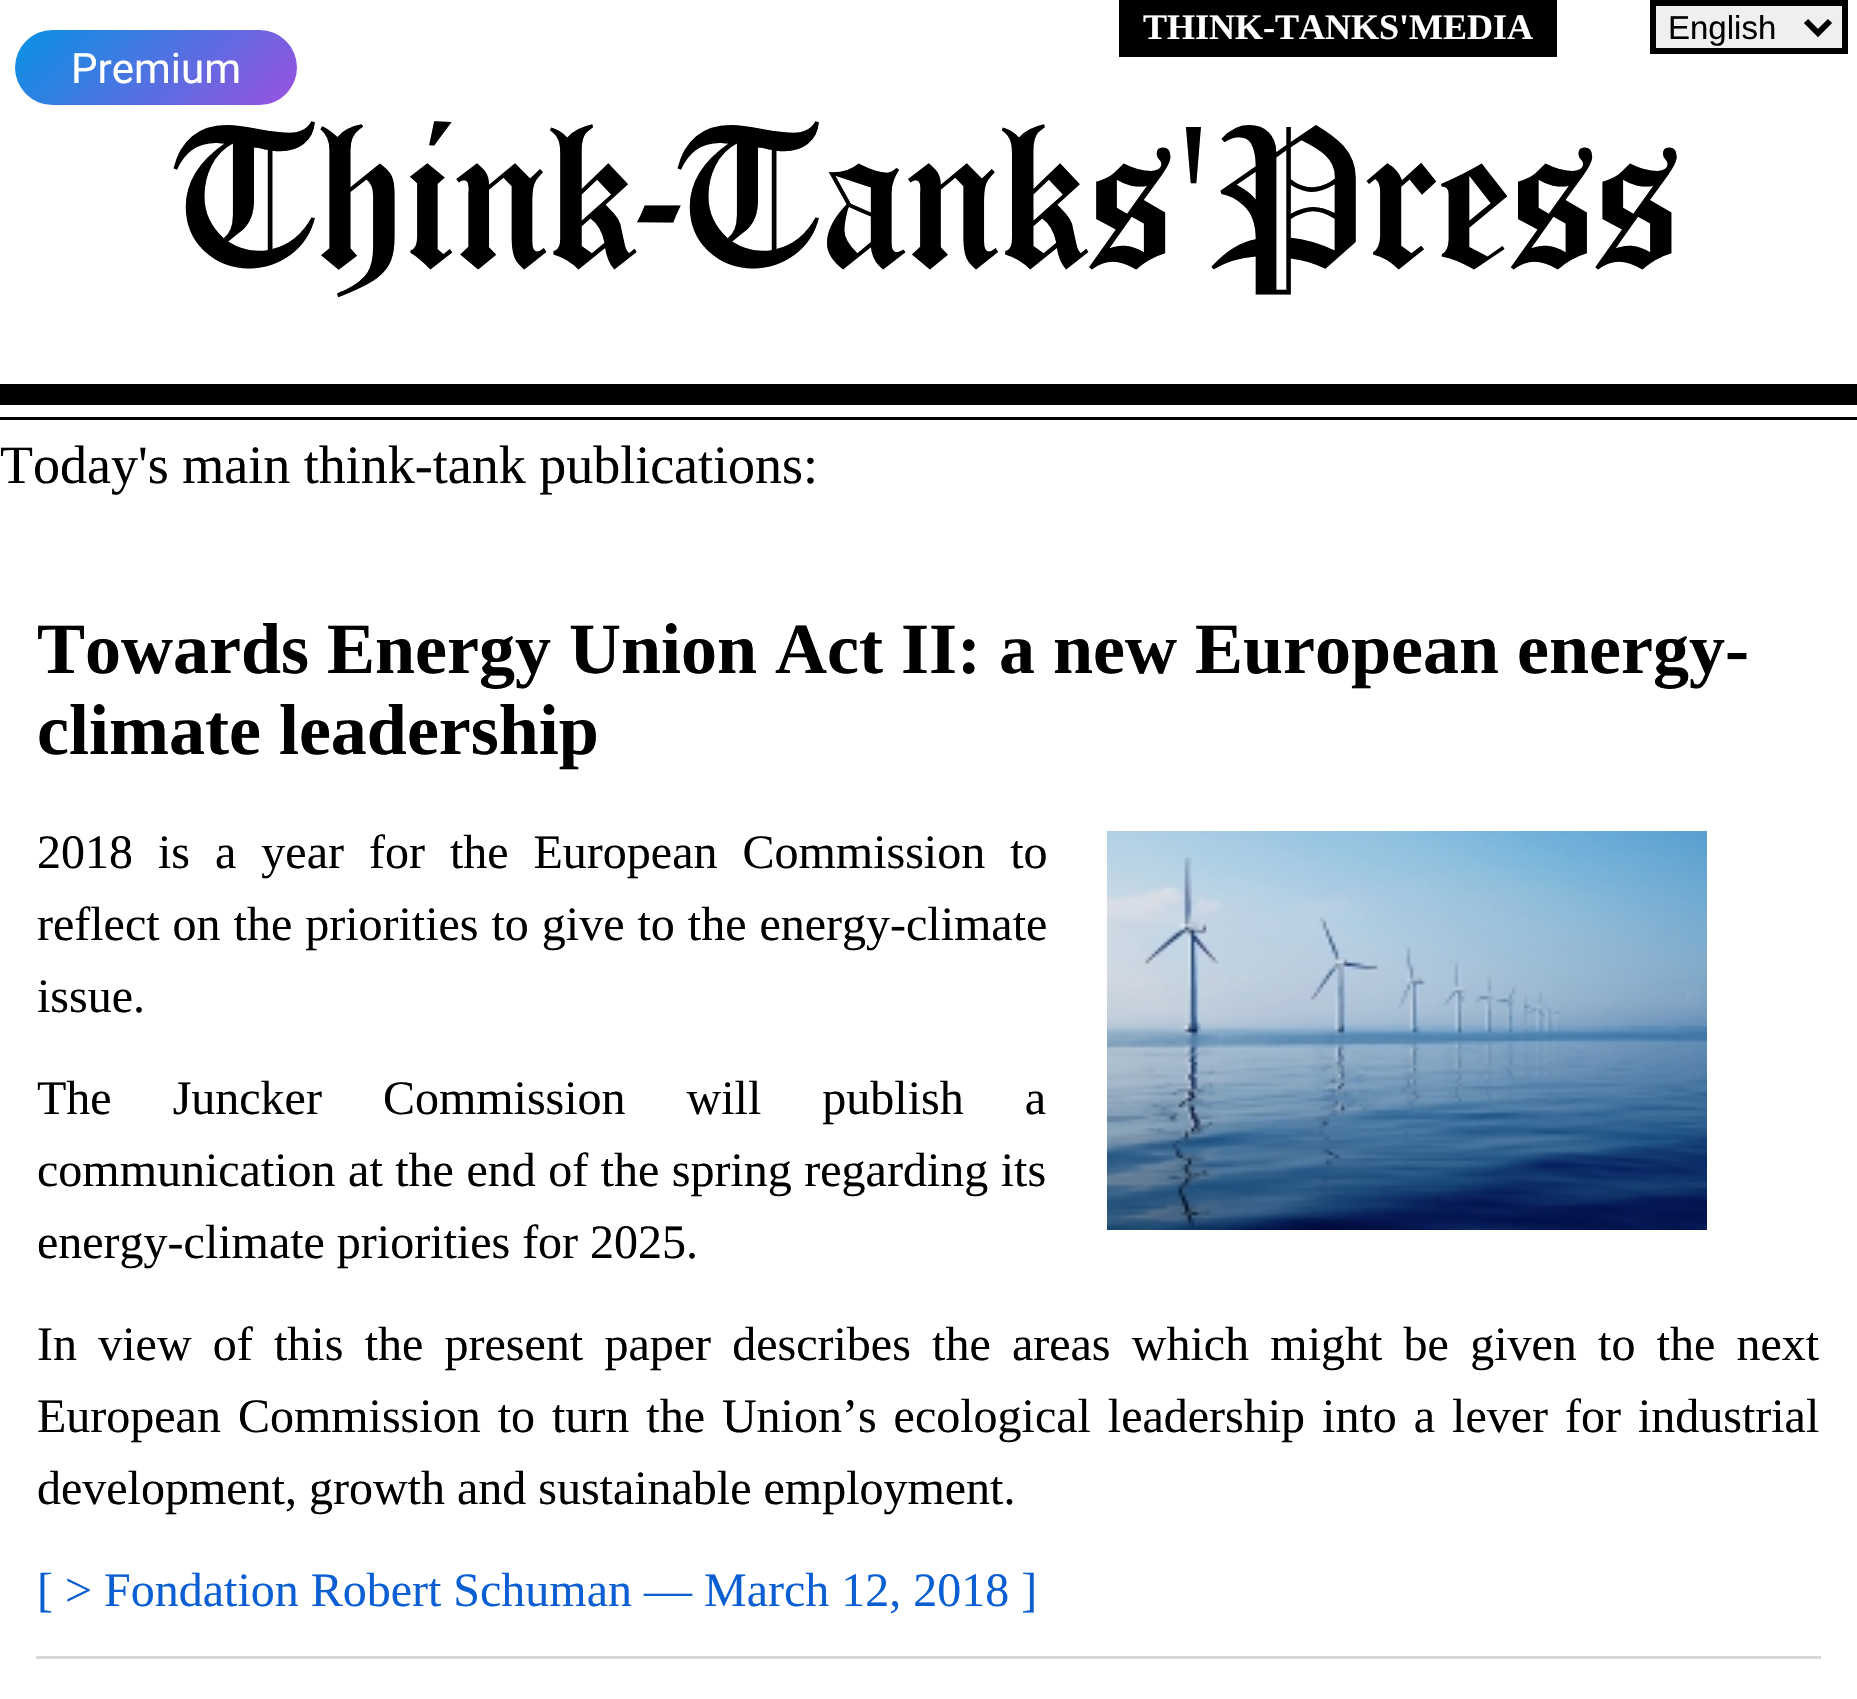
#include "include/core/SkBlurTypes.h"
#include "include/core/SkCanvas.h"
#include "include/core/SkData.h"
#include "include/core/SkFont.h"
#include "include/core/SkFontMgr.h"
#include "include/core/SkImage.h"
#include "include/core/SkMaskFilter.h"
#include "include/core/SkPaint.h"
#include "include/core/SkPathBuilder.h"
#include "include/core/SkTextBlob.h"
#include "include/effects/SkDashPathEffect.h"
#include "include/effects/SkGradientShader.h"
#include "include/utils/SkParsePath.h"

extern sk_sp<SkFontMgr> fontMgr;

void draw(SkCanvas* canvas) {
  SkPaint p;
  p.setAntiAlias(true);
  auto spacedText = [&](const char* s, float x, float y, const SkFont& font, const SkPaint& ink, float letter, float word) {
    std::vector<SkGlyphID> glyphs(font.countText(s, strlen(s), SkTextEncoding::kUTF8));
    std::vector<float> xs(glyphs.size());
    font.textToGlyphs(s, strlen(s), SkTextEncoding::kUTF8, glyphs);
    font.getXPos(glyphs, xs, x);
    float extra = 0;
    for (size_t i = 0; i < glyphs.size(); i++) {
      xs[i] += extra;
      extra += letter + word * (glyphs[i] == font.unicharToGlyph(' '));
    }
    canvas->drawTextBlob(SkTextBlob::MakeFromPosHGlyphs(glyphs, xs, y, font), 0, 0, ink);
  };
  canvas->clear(SK_ColorWHITE);
  p.setColor(SK_ColorBLACK);
  canvas->drawRect(SkRect::MakeLTRB(1119, 0, 1557, 57), p);
  p.setColor(SkColorSetRGB(239, 239, 239));
  canvas->drawRect(SkRect::MakeLTRB(1653, 3, 1845, 51), p);
  p.setStyle(SkPaint::kStroke_Style);
  p.setStrokeWidth(6);
  p.setColor(SK_ColorBLACK);
  canvas->drawRect(SkRect::MakeLTRB(1653, 3, 1845, 51), p);
  canvas->drawPath(SkPathBuilder().moveTo(1806, 21).lineTo(1818, 33).lineTo(1830, 21).detach(), p);
  p.setStyle(SkPaint::kFill_Style);
  {
    const SkColor colors[] = {SkColorSetRGB(6, 147, 227), SkColorSetRGB(155, 81, 224)};
    const float stops[] = {0, 1};
    const SkPoint ends[] = {{67, -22}, {245, 157}};
    p.setShader(SkGradientShader::MakeLinear(ends, colors, stops, 2, SkTileMode::kClamp));
    p.setAlpha(255);
  }
  canvas->drawRoundRect(SkRect::MakeLTRB(15, 30, 297, 105), 37.5f, 37.5f, p);
  p.setShader(nullptr);
  p.setColor(SK_ColorBLACK);
  canvas->drawRect(SkRect::MakeLTRB(0, 384, 1857, 405), p);
  canvas->drawRect(SkRect::MakeLTRB(0, 417, 1857, 420), p);
  p.setColor(SkColorSetRGB(216, 216, 216));
  canvas->drawRect(SkRect::MakeLTRB(36, 1656, 1821, 1659), p);
  canvas->drawImageRect(SkImages::DeferredFromEncodedData(SkData::MakeFromFileName("images/1.png")), SkRect::MakeLTRB(1107, 831, 1707, 1230), SkSamplingOptions());
  SkFont font1(fontMgr->matchFamilyStyle("Liberation Serif", SkFontStyle::Bold()), 36);
  font1.setSubpixel(true);
  p.setColor(SK_ColorWHITE);
  canvas->drawString("THINK-TANKS'MEDIA", 1143, 39, font1, p);
  SkFont font2(fontMgr->matchFamilyStyle("Liberation Sans", SkFontStyle::Normal()), 33);
  font2.setSubpixel(true);
  p.setColor(SK_ColorBLACK);
  canvas->drawString("English", 1668, 39, font2, p);
  SkFont font3(fontMgr->matchFamilyStyle("Roboto", SkFontStyle::Normal()), 42);
  font3.setSubpixel(true);
  p.setColor(SK_ColorWHITE);
  canvas->drawString("Premium", 71, 83, font3, p);
  SkFont font4(fontMgr->matchFamilyStyle("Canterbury", SkFontStyle::Normal()), 210);
  font4.setSubpixel(true);
  p.setColor(SK_ColorBLACK);
  canvas->drawString("Think-Tanks'Press", 179, 267, font4, p);
  SkFont font5(fontMgr->matchFamilyStyle("Liberation Serif", SkFontStyle::Normal()), 54);
  font5.setSubpixel(true);
  canvas->drawString("Today's main think-tank publications:", 0, 483, font5, p);
  SkFont font6(fontMgr->matchFamilyStyle("Liberation Serif", SkFontStyle::Bold()), 72);
  font6.setSubpixel(true);
  canvas->drawString("Towards Energy Union Act II: a new European energy-", 37, 673, font6, p);
  canvas->drawString("climate leadership", 37, 754, font6, p);
  SkFont font7(fontMgr->matchFamilyStyle("Liberation Serif", SkFontStyle::Normal()), 48);
  font7.setSubpixel(true);
  spacedText("2018 is a year for the European Commission to", 37, 868, font7, p, 0, 13);
  spacedText("reflect on the priorities to give to the energy-climate", 37, 940, font7, p, 0, 1);
  canvas->drawString("issue.", 37, 1012, font7, p);
  spacedText("The Juncker Commission will publish a", 37, 1114, font7, p, 0, 49);
  spacedText("communication at the end of the spring regarding its", 37, 1186, font7, p, 0, 0.5f);
  canvas->drawString("energy-climate priorities for 2025.", 37, 1258, font7, p);
  spacedText("In view of this the present paper describes the areas which might be given to the next", 37, 1360, font7, p, 0, 9.25f);
  spacedText("European Commission to turn the Union’s ecological leadership into a lever for industrial", 37, 1432, font7, p, 0, 5);
  canvas->drawString("development, growth and sustainable employment.", 37, 1504, font7, p);
  p.setColor(SkColorSetRGB(12, 95, 210));
  canvas->drawString("[ > Fondation Robert Schuman — March 12, 2018 ]", 37, 1606, font7, p);
}
